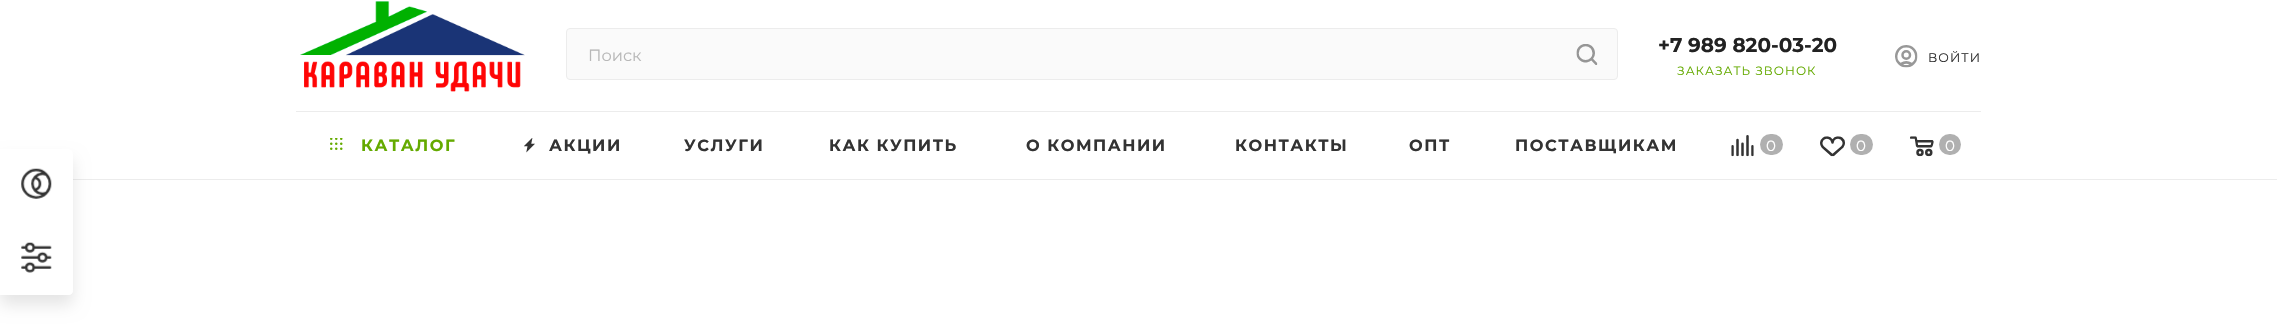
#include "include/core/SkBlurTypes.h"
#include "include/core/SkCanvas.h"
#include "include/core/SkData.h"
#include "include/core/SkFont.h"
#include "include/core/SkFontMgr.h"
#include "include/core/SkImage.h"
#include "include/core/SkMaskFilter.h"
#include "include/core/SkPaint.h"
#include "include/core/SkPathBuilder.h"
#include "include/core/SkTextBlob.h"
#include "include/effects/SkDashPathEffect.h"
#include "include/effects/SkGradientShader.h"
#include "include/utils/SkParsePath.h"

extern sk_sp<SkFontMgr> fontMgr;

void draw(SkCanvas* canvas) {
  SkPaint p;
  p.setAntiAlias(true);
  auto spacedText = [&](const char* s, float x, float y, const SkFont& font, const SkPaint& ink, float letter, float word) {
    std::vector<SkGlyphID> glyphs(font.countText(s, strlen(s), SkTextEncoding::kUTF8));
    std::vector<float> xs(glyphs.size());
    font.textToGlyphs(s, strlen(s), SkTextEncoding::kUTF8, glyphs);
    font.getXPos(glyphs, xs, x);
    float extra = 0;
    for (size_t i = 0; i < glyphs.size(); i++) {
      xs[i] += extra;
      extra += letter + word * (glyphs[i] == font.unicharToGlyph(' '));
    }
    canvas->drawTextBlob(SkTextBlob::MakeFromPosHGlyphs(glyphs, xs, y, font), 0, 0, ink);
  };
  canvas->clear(SK_ColorWHITE);
  canvas->drawImageRect(SkImages::DeferredFromEncodedData(SkData::MakeFromFileName("images/1.png")), SkRect::MakeLTRB(300, 1, 525, 92), SkSamplingOptions());
  p.setColor(SkColorSetRGB(250, 250, 250));
  canvas->drawRoundRect(SkRect::MakeLTRB(566.5f, 28.5f, 1617.5f, 79.5f), 3.5f, 3.5f, p);
  p.setStyle(SkPaint::kStroke_Style);
  p.setStrokeWidth(1);
  p.setColor(SkColorSetRGB(236, 236, 236));
  canvas->drawRoundRect(SkRect::MakeLTRB(566.5f, 28.5f, 1617.5f, 79.5f), 3.5f, 3.5f, p);
  canvas->drawImageRect(SkImages::DeferredFromEncodedData(SkData::MakeFromFileName("images/2.png")), SkRect::MakeLTRB(1576, 44, 1598, 65), SkSamplingOptions());
  canvas->drawImageRect(SkImages::DeferredFromEncodedData(SkData::MakeFromFileName("images/3.png")), SkRect::MakeLTRB(1895, 45, 1918, 68), SkSamplingOptions());
  p.setStyle(SkPaint::kFill_Style);
  canvas->drawRect(SkRect::MakeLTRB(73, 179, 2277, 180), p);
  canvas->drawRect(SkRect::MakeLTRB(296, 111, 1981, 112), p);
  canvas->drawImageRect(SkImages::DeferredFromEncodedData(SkData::MakeFromFileName("images/4.png")), SkRect::MakeLTRB(330, 138, 343, 150), SkSamplingOptions());
  canvas->drawImageRect(SkImages::DeferredFromEncodedData(SkData::MakeFromFileName("images/5.png")), SkRect::MakeLTRB(524, 138, 535, 153), SkSamplingOptions());
  canvas->drawImageRect(SkImages::DeferredFromEncodedData(SkData::MakeFromFileName("images/6.png")), SkRect::MakeLTRB(1731, 135, 1754, 157), SkSamplingOptions());
  p.setColor(SkColorSetRGB(176, 176, 176));
  canvas->drawRoundRect(SkRect::MakeLTRB(1760, 134, 1783, 155), 10.5f, 10.5f, p);
  canvas->drawImageRect(SkImages::DeferredFromEncodedData(SkData::MakeFromFileName("images/7.png")), SkRect::MakeLTRB(1820, 136, 1845, 157), SkSamplingOptions());
  canvas->drawRoundRect(SkRect::MakeLTRB(1850, 134, 1873, 155), 10.5f, 10.5f, p);
  canvas->drawImageRect(SkImages::DeferredFromEncodedData(SkData::MakeFromFileName("images/8.png")), SkRect::MakeLTRB(1910, 136, 1934, 157), SkSamplingOptions());
  canvas->drawRoundRect(SkRect::MakeLTRB(1939, 134, 1961, 155), 10.5f, 10.5f, p);
  p.setColor(SkColorSetARGB(26, 0, 0, 0));
  p.setMaskFilter(SkMaskFilter::MakeBlur(kNormal_SkBlurStyle, 8));
  canvas->drawRoundRect(SkRect::MakeLTRB(0, 159, 73, 305), 5, 5, p);
  p.setMaskFilter(nullptr);
  p.setColor(SK_ColorWHITE);
  canvas->drawPath(SkPathBuilder().moveTo(0, 149).lineTo(68, 149).cubicTo(71, 149, 73, 151, 73, 154).lineTo(73, 290).cubicTo(73, 293, 71, 295, 68, 295).lineTo(0, 295).close().detach(), p);
  canvas->drawImageRect(SkImages::DeferredFromEncodedData(SkData::MakeFromFileName("images/9.png")), SkRect::MakeLTRB(21, 168, 52, 199), SkSamplingOptions());
  canvas->drawPath(SkPathBuilder().moveTo(0, 223).lineTo(73, 223).lineTo(73, 290).cubicTo(73, 293, 71, 295, 68, 295).lineTo(0, 295).close().detach(), p);
  canvas->drawImageRect(SkImages::DeferredFromEncodedData(SkData::MakeFromFileName("images/10.png")), SkRect::MakeLTRB(21, 242, 52, 273), SkSamplingOptions());
  SkFont font1(fontMgr->matchFamilyStyle("Montserrat", SkFontStyle::Normal()), 16.25f);
  font1.setSubpixel(true);
  p.setColor(SkColorSetRGB(184, 184, 184));
  canvas->drawString("Поиск", 588, 61, font1, p);
  SkFont font2(fontMgr->matchFamilyStyle("Montserrat", SkFontStyle::Bold()), 20);
  font2.setSubpixel(true);
  p.setColor(SkColorSetRGB(34, 34, 34));
  canvas->drawString("+7 989 820-03-20", 1658, 52, font2, p);
  SkFont font3(fontMgr->matchFamilyStyle("Montserrat", SkFontStyle::Normal()), 12);
  font3.setSubpixel(true);
  p.setColor(SkColorSetRGB(100, 170, 0));
  spacedText("ЗАКАЗАТЬ ЗВОНОК", 1677, 75, font3, p, 1, 0);
  SkFont font4(fontMgr->matchFamilyStyle("Montserrat", SkFontStyle::Normal()), 12.5f);
  font4.setSubpixel(true);
  p.setColor(SkColorSetRGB(51, 51, 51));
  spacedText("ВОЙТИ", 1928, 62, font4, p, 1, 0);
  SkFont font5(fontMgr->matchFamilyStyle("Montserrat", SkFontStyle::Bold()), 16.25f);
  font5.setSubpixel(true);
  p.setColor(SkColorSetRGB(100, 170, 0));
  spacedText("КАТАЛОГ", 361, 151, font5, p, 1.5f, 0);
  p.setColor(SkColorSetRGB(51, 51, 51));
  spacedText("АКЦИИ", 549, 151, font5, p, 1.5f, 0);
  spacedText("УСЛУГИ", 684, 151, font5, p, 1.5f, 0);
  spacedText("КАК КУПИТЬ", 829, 151, font5, p, 1.5f, 0);
  spacedText("О КОМПАНИИ", 1026, 151, font5, p, 1.5f, 0);
  spacedText("КОНТАКТЫ", 1235, 151, font5, p, 1.5f, 0);
  spacedText("ОПТ", 1409, 151, font5, p, 1.5f, 0);
  spacedText("ПОСТАВЩИКАМ", 1515, 151, font5, p, 1.5f, 0);
  SkFont font6(fontMgr->matchFamilyStyle("Montserrat", SkFontStyle::Normal()), 15);
  font6.setSubpixel(true);
  p.setColor(SK_ColorWHITE);
  canvas->drawString("0", 1766, 151, font6, p);
  canvas->drawString("0", 1856, 151, font6, p);
  canvas->drawString("0", 1945, 151, font6, p);
}
